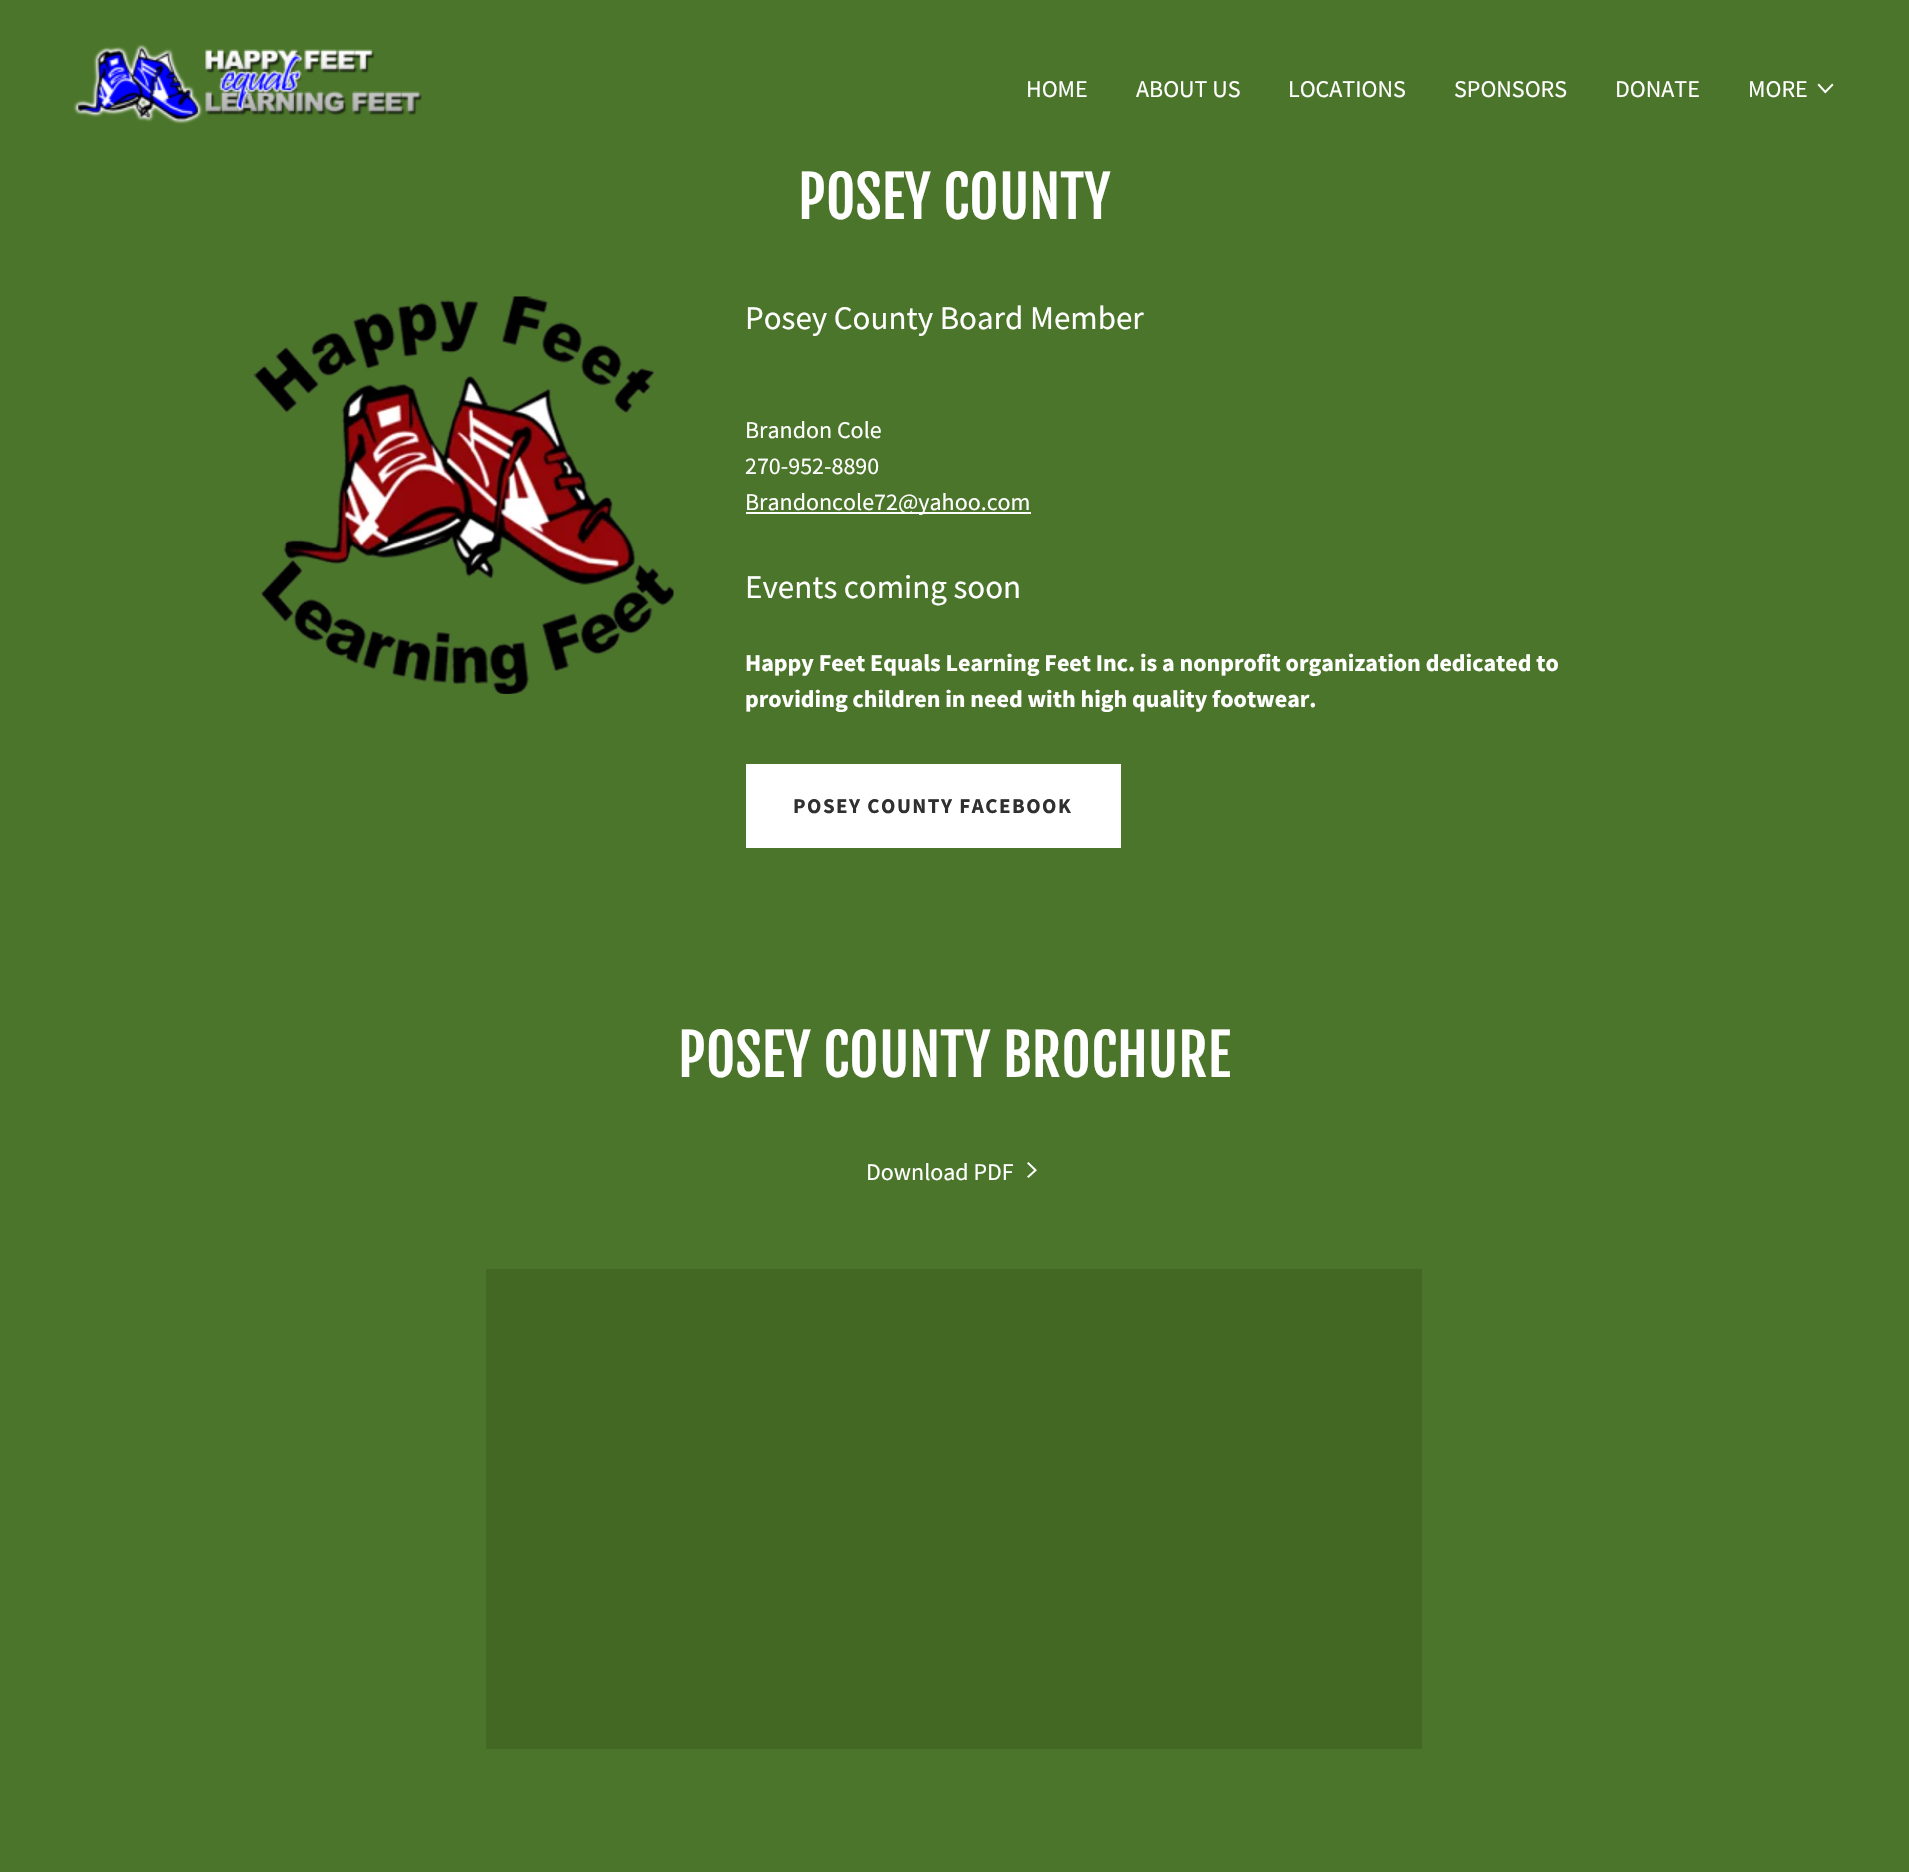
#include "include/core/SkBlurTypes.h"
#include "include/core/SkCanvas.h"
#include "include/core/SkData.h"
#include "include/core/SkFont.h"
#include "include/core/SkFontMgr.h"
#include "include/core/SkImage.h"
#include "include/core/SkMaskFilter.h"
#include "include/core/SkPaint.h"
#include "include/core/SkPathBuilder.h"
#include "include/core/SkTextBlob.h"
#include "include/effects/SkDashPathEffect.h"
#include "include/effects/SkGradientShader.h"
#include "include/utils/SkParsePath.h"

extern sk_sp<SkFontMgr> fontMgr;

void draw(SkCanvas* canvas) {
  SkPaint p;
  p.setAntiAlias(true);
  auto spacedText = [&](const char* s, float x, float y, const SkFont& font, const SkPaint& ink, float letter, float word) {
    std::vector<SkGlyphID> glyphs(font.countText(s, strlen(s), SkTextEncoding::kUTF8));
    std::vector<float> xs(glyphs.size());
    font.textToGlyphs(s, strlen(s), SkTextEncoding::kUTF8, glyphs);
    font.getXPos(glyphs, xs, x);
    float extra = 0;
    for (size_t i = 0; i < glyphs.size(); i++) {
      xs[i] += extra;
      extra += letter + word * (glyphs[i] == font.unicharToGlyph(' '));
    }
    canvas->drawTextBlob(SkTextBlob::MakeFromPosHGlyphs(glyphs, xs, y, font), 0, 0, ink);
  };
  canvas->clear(SkColorSetRGB(75, 117, 42));
  canvas->drawImageRect(SkImages::DeferredFromEncodedData(SkData::MakeFromFileName("images/1.png")), SkRect::MakeLTRB(73, 44, 422, 124), SkSamplingOptions());
  canvas->drawImageRect(SkImages::DeferredFromEncodedData(SkData::MakeFromFileName("images/2.png")), SkRect::MakeLTRB(1817, 83, 1834, 94), SkSamplingOptions());
  canvas->drawImageRect(SkImages::DeferredFromEncodedData(SkData::MakeFromFileName("images/3.png")), SkRect::MakeLTRB(253, 296, 674, 694), SkSamplingOptions());
  p.setColor(SK_ColorWHITE);
  canvas->drawRect(SkRect::MakeLTRB(746, 512, 1031, 514), p);
  canvas->drawRect(SkRect::MakeLTRB(746, 764, 1121, 848), p);
  canvas->drawImageRect(SkImages::DeferredFromEncodedData(SkData::MakeFromFileName("images/4.png")), SkRect::MakeLTRB(1027, 1162, 1037, 1178), SkSamplingOptions());
  p.setColor(SkColorSetRGB(66, 104, 36));
  canvas->drawRect(SkRect::MakeLTRB(486, 1269, 1422, 1749), p);
  SkFont font1(fontMgr->matchFamilyStyle("Source Sans Pro", SkFontStyle::Normal()), 24);
  font1.setSubpixel(true);
  p.setColor(SK_ColorWHITE);
  canvas->drawString("HOME", 1026, 97, font1, p);
  canvas->drawString("ABOUT US", 1136, 97, font1, p);
  canvas->drawString("LOCATIONS", 1288, 97, font1, p);
  canvas->drawString("SPONSORS", 1454, 97, font1, p);
  canvas->drawString("DONATE", 1615, 97, font1, p);
  canvas->drawString("MORE", 1748, 97, font1, p);
  SkFont font2(fontMgr->matchFamilyStyle("Fjalla One", SkFontStyle::Normal()), 57);
  font2.setSubpixel(true);
  canvas->drawString("POSEY COUNTY", 798, 219, font2, p);
  SkFont font3(fontMgr->matchFamilyStyle("Source Sans Pro", SkFontStyle::Normal()), 33);
  font3.setSubpixel(true);
  canvas->drawString("Posey County Board Member", 745, 329, font3, p);
  canvas->drawString("Brandon Cole", 745, 438, font1, p);
  canvas->drawString("270-952-8890", 745, 474, font1, p);
  canvas->drawString("Brandoncole72@yahoo.com", 745, 510, font1, p);
  canvas->drawString("Events coming soon", 745, 598, font3, p);
  SkFont font4(fontMgr->matchFamilyStyle("Source Sans Pro", SkFontStyle::Bold()), 24);
  font4.setSubpixel(true);
  canvas->drawString("Happy Feet Equals Learning Feet Inc. is a nonprofit organization dedicated to", 745, 671, font4, p);
  canvas->drawString("providing children in need with high quality footwear.", 745, 707, font4, p);
  SkFont font5(fontMgr->matchFamilyStyle("Source Sans Pro", SkFontStyle::Bold()), 21);
  font5.setSubpixel(true);
  p.setColor(SkColorSetRGB(48, 48, 48));
  spacedText("POSEY COUNTY FACEBOOK", 793, 813, font5, p, 1.5f, 0);
  p.setColor(SK_ColorWHITE);
  canvas->drawString("POSEY COUNTY BROCHURE", 678, 1077, font2, p);
  canvas->drawString("Download PDF", 866, 1180, font1, p);
}
